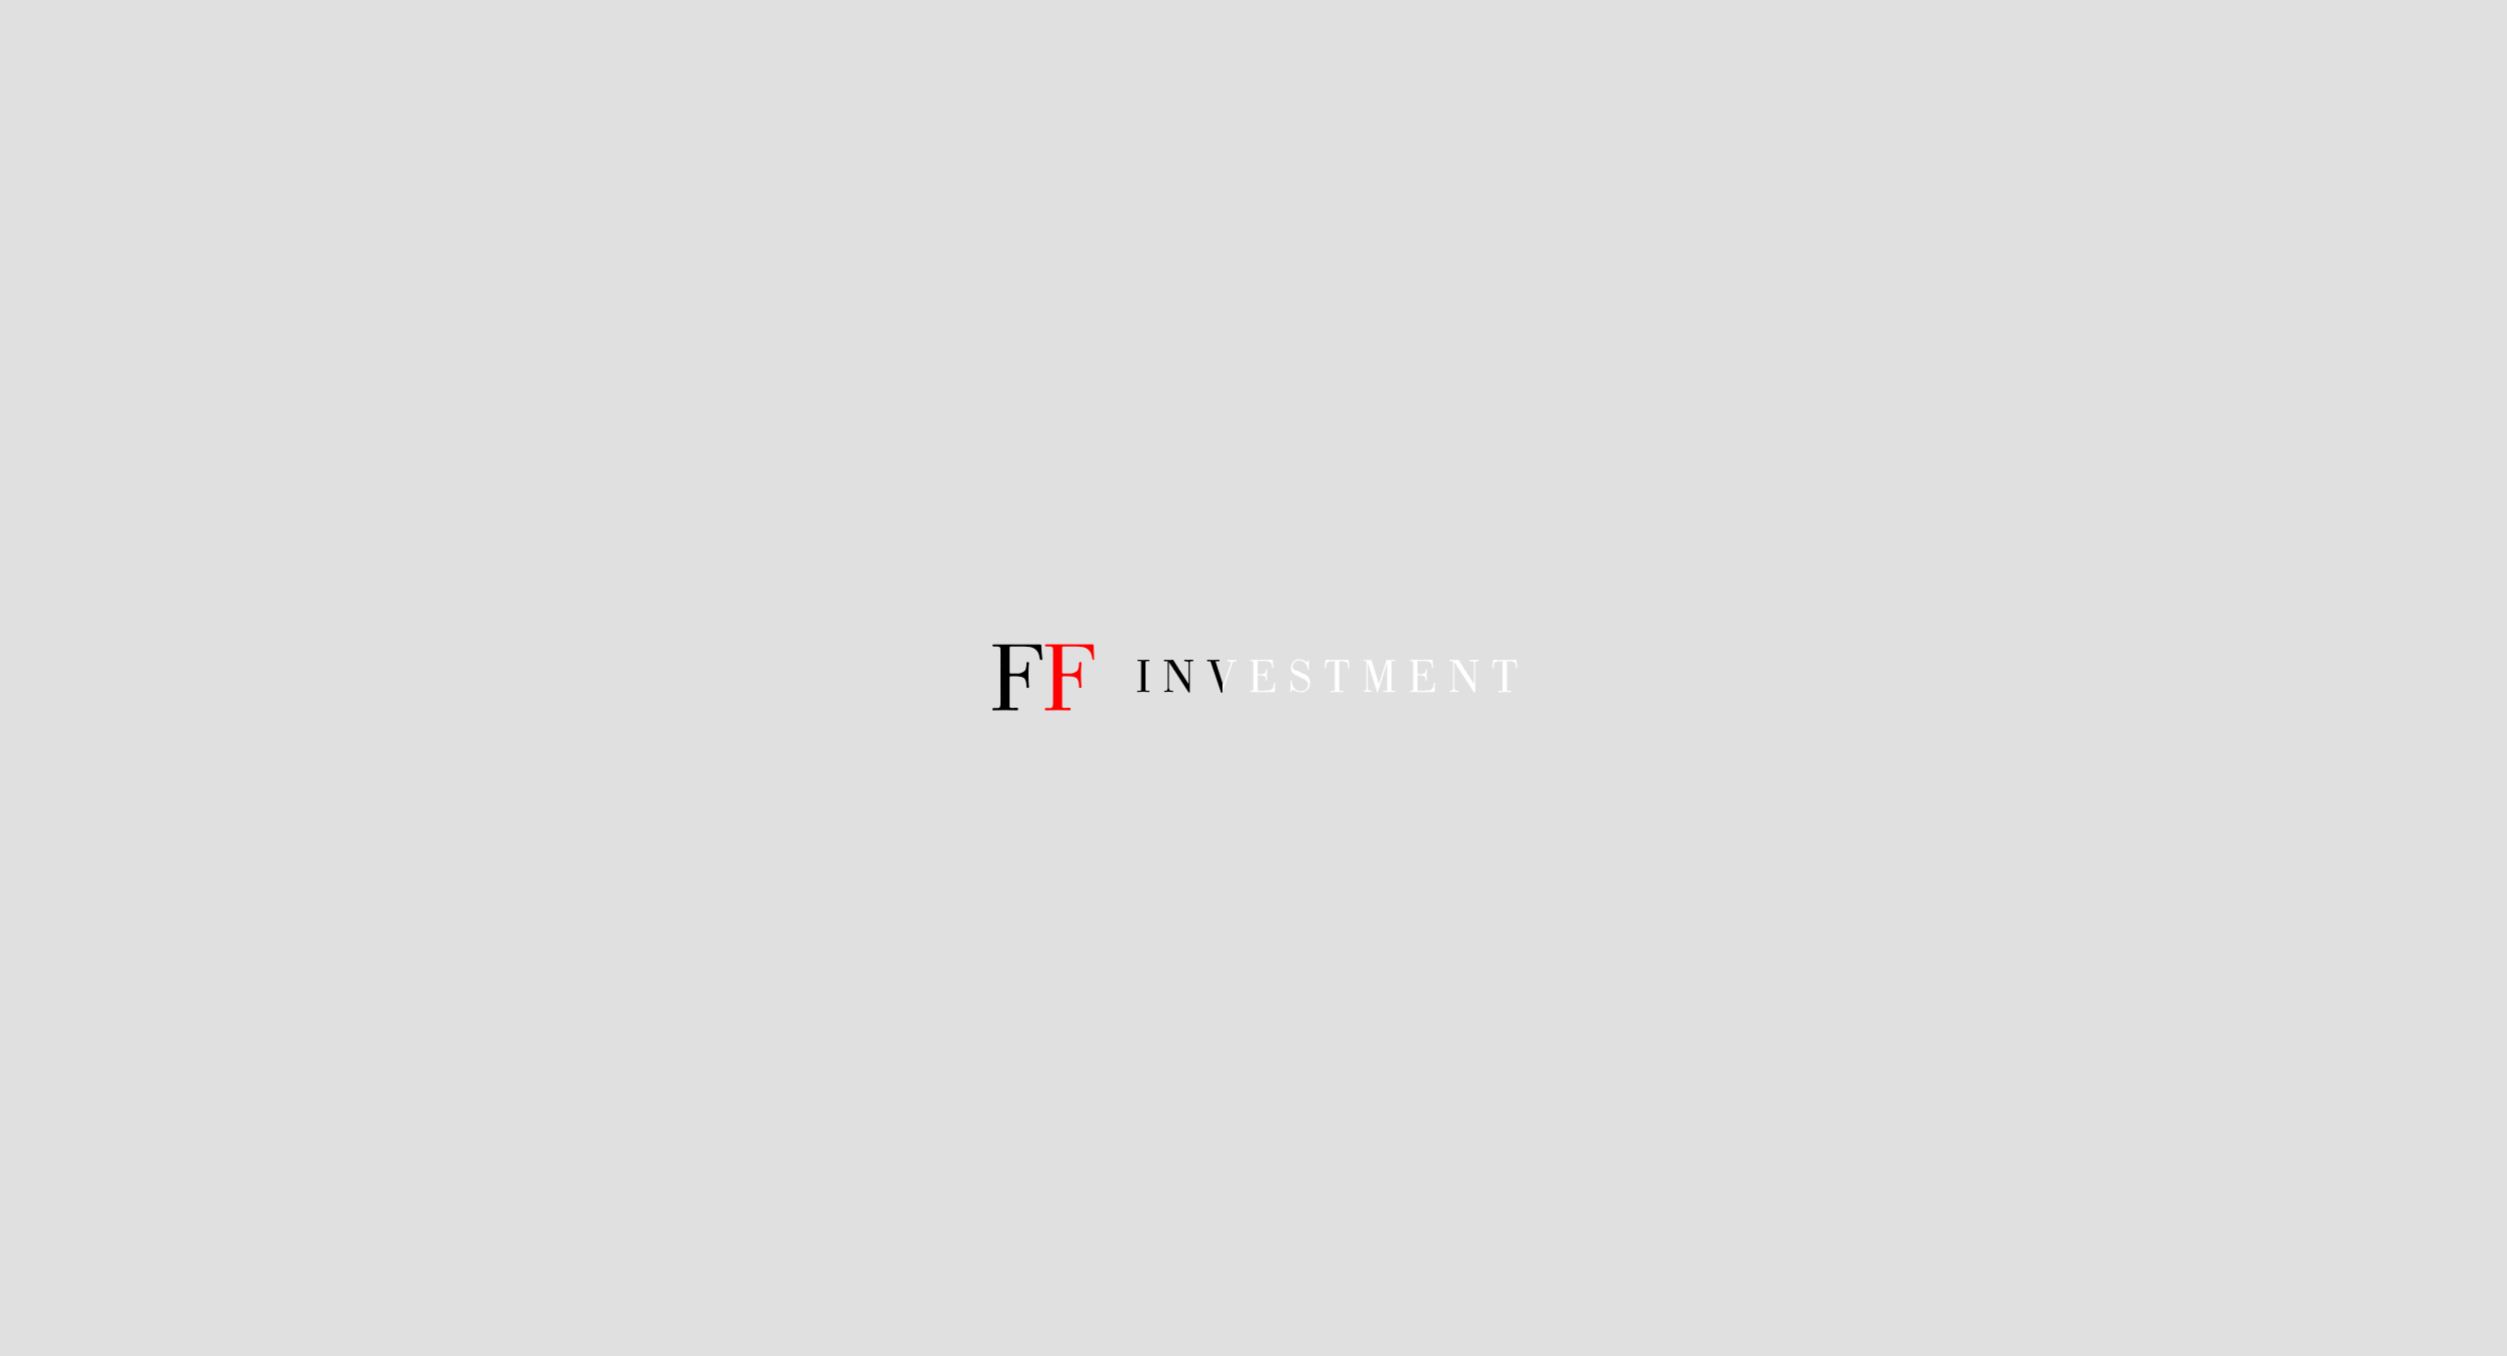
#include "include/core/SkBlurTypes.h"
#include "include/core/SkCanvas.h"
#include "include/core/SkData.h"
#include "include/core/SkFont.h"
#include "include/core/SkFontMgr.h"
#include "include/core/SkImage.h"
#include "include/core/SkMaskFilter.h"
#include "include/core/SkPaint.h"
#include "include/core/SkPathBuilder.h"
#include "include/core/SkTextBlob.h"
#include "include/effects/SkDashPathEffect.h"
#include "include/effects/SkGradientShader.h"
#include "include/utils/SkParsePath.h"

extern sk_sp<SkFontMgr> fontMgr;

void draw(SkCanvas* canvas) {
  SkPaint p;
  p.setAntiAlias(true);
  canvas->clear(SkColorSetRGB(224, 224, 224));
  canvas->drawImageRect(SkImages::DeferredFromEncodedData(SkData::MakeFromFileName("images/1.png")), SkRect::MakeLTRB(992, 643, 1518, 711), SkSamplingOptions());
}
